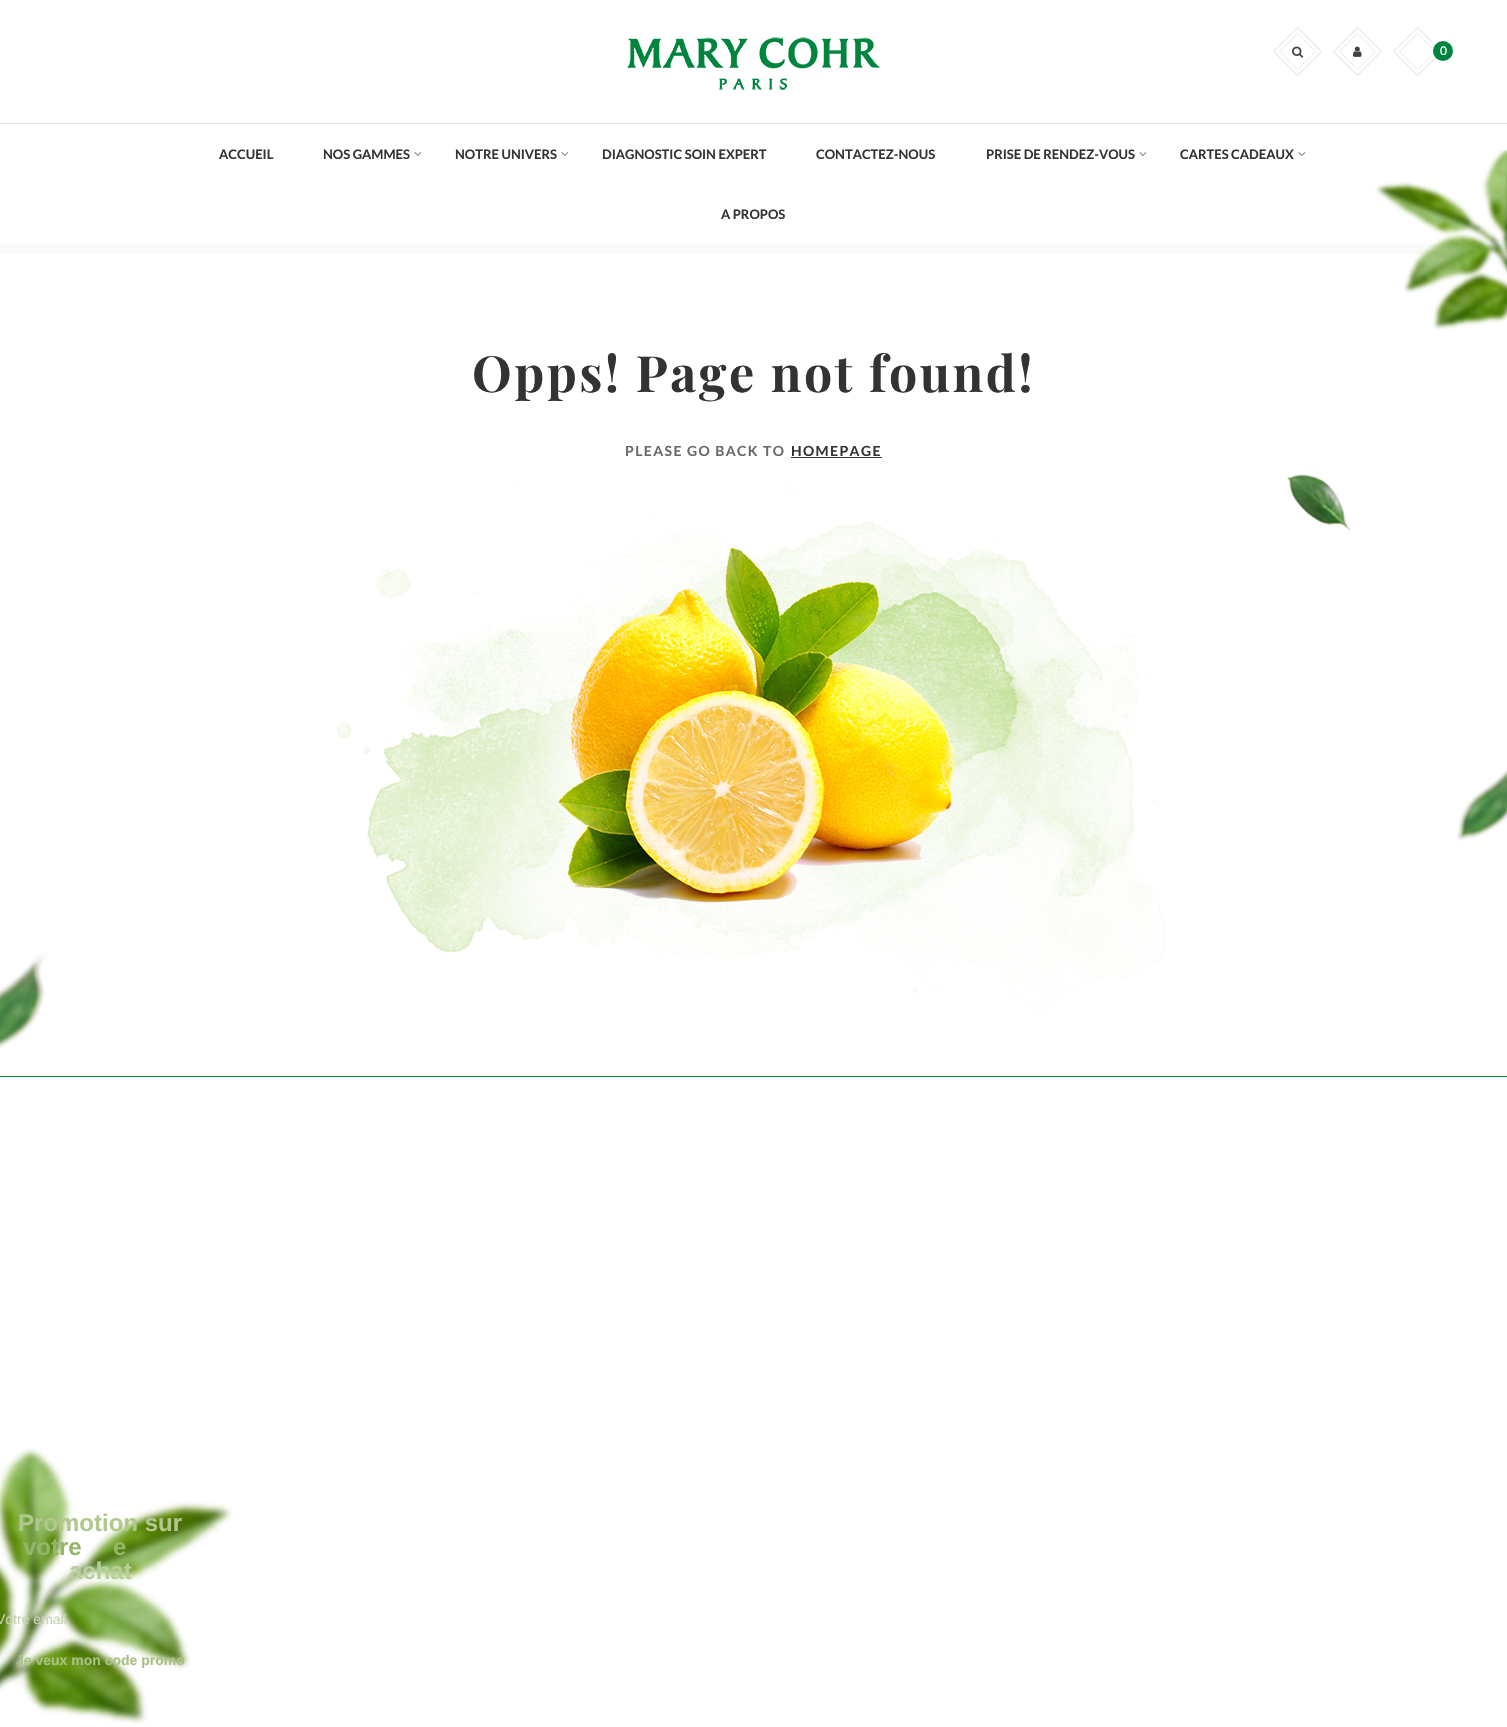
#include "include/core/SkBlurTypes.h"
#include "include/core/SkCanvas.h"
#include "include/core/SkData.h"
#include "include/core/SkFont.h"
#include "include/core/SkFontMgr.h"
#include "include/core/SkImage.h"
#include "include/core/SkMaskFilter.h"
#include "include/core/SkPaint.h"
#include "include/core/SkPathBuilder.h"
#include "include/core/SkTextBlob.h"
#include "include/effects/SkDashPathEffect.h"
#include "include/effects/SkGradientShader.h"
#include "include/utils/SkParsePath.h"

extern sk_sp<SkFontMgr> fontMgr;

void draw(SkCanvas* canvas) {
  SkPaint p;
  p.setAntiAlias(true);
  auto spacedText = [&](const char* s, float x, float y, const SkFont& font, const SkPaint& ink, float letter, float word) {
    std::vector<SkGlyphID> glyphs(font.countText(s, strlen(s), SkTextEncoding::kUTF8));
    std::vector<float> xs(glyphs.size());
    font.textToGlyphs(s, strlen(s), SkTextEncoding::kUTF8, glyphs);
    font.getXPos(glyphs, xs, x);
    float extra = 0;
    for (size_t i = 0; i < glyphs.size(); i++) {
      xs[i] += extra;
      extra += letter + word * (glyphs[i] == font.unicharToGlyph(' '));
    }
    canvas->drawTextBlob(SkTextBlob::MakeFromPosHGlyphs(glyphs, xs, y, font), 0, 0, ink);
  };
  canvas->clear(SK_ColorWHITE);
  canvas->drawImageRect(SkImages::DeferredFromEncodedData(SkData::MakeFromFileName("images/1.png")), SkRect::MakeLTRB(627, 37, 880, 90), SkSamplingOptions());
  p.setStyle(SkPaint::kStroke_Style);
  p.setStrokeWidth(1);
  p.setColor(SkColorSetRGB(233, 233, 233));
  canvas->drawPath(SkPathBuilder().moveTo(1297.5f, 33.5f).lineTo(1315.5f, 51.5f).lineTo(1297.5f, 69.5f).lineTo(1280, 51.5f).close().detach(), p);
  canvas->drawImageRect(SkImages::DeferredFromEncodedData(SkData::MakeFromFileName("images/2.png")), SkRect::MakeLTRB(1292, 46, 1304, 58), SkSamplingOptions());
  p.setColor(SkColorSetRGB(221, 221, 221));
  canvas->drawPath(SkPathBuilder().moveTo(1297.5f, 27.5f).lineTo(1321.5f, 51.5f).lineTo(1297.5f, 75.5f).lineTo(1273.5f, 51.5f).close().detach(), p);
  p.setColor(SkColorSetRGB(233, 233, 233));
  canvas->drawPath(SkPathBuilder().moveTo(1357.5f, 33.5f).lineTo(1375.5f, 51.5f).lineTo(1357.5f, 69.5f).lineTo(1339.5f, 51.5f).close().detach(), p);
  canvas->drawImageRect(SkImages::DeferredFromEncodedData(SkData::MakeFromFileName("images/3.png")), SkRect::MakeLTRB(1353, 46, 1362, 57), SkSamplingOptions());
  p.setColor(SkColorSetRGB(221, 221, 221));
  canvas->drawPath(SkPathBuilder().moveTo(1357.5f, 27.5f).lineTo(1381.5f, 51.5f).lineTo(1357.5f, 75.5f).lineTo(1333.5f, 51.5f).close().detach(), p);
  p.setColor(SkColorSetRGB(233, 233, 233));
  canvas->drawPath(SkPathBuilder().moveTo(1417.5f, 33.5f).lineTo(1435.5f, 51.5f).lineTo(1417.5f, 69.5f).lineTo(1399.5f, 51.5f).close().detach(), p);
  p.setColor(SkColorSetRGB(221, 221, 221));
  canvas->drawPath(SkPathBuilder().moveTo(1417.5f, 27.5f).lineTo(1441.5f, 51.5f).lineTo(1417.5f, 75.5f).lineTo(1393.5f, 51.5f).close().detach(), p);
  p.setStyle(SkPaint::kFill_Style);
  p.setColor(SkColorSetRGB(0, 131, 63));
  canvas->drawCircle(1443, 51, 10, p);
  p.setColor(SkColorSetRGB(227, 227, 227));
  canvas->drawRect(SkRect::MakeLTRB(0, 123, 1507, 124), p);
  canvas->drawImageRect(SkImages::DeferredFromEncodedData(SkData::MakeFromFileName("images/4.png")), SkRect::MakeLTRB(414, 152, 422, 156), SkSamplingOptions());
  canvas->drawImageRect(SkImages::DeferredFromEncodedData(SkData::MakeFromFileName("images/4.png")), SkRect::MakeLTRB(561, 152, 569, 156), SkSamplingOptions());
  canvas->drawImageRect(SkImages::DeferredFromEncodedData(SkData::MakeFromFileName("images/4.png")), SkRect::MakeLTRB(1139, 152, 1147, 156), SkSamplingOptions());
  canvas->drawImageRect(SkImages::DeferredFromEncodedData(SkData::MakeFromFileName("images/4.png")), SkRect::MakeLTRB(1298, 152, 1306, 156), SkSamplingOptions());
  p.setColor(SkColorSetRGB(250, 250, 250));
  canvas->drawRect(SkRect::MakeLTRB(0, 244, 1507, 254), p);
  p.setColor(SkColorSetRGB(51, 51, 51));
  canvas->drawRect(SkRect::MakeLTRB(791, 457, 882, 458), p);
  canvas->drawImageRect(SkImages::DeferredFromEncodedData(SkData::MakeFromFileName("images/5.png")), SkRect::MakeLTRB(337, 476, 1166, 1019), SkSamplingOptions());
  p.setColor(SkColorSetRGB(0, 131, 63));
  canvas->drawRect(SkRect::MakeLTRB(0, 1076, 1507, 1077), p);
  canvas->drawImageRect(SkImages::DeferredFromEncodedData(SkData::MakeFromFileName("images/7.png")), SkRect::MakeLTRB(0, 953, 233, 1724), SkSamplingOptions());
  p.setStyle(SkPaint::kStroke_Style);
  canvas->drawPath(SkPathBuilder().moveTo(1456, 1727).lineTo(1485, 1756).lineTo(1456, 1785).lineTo(1427, 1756).close().detach(), p);
  SkFont font1(fontMgr->matchFamilyStyle("Lato", SkFontStyle::Normal()), 12);
  font1.setSubpixel(true);
  p.setStyle(SkPaint::kFill_Style);
  p.setColor(SK_ColorWHITE);
  canvas->drawString("0", 1440, 55, font1, p);
  SkFont font2(fontMgr->matchFamilyStyle("Lato", SkFontStyle::Bold()), 13);
  font2.setSubpixel(true);
  p.setColor(SkColorSetRGB(51, 51, 51));
  canvas->drawString("ACCUEIL", 219, 159, font2, p);
  canvas->drawString("NOS GAMMES", 323, 159, font2, p);
  canvas->drawString("NOTRE UNIVERS", 455, 159, font2, p);
  canvas->drawString("DIAGNOSTIC SOIN EXPERT", 602, 159, font2, p);
  canvas->drawString("CONTACTEZ-NOUS", 816, 159, font2, p);
  canvas->drawString("PRISE DE RENDEZ-VOUS", 986, 159, font2, p);
  canvas->drawString("CARTES CADEAUX", 1180, 159, font2, p);
  canvas->drawString("A PROPOS", 721, 219, font2, p);
  SkFont font3(fontMgr->matchFamilyStyle("Playfair Display", SkFontStyle::Bold()), 50);
  font3.setSubpixel(true);
  spacedText("Opps! Page not found!", 472, 392, font3, p, 2.5f, 0);
  SkFont font4(fontMgr->matchFamilyStyle("Lato", SkFontStyle::Bold()), 14);
  font4.setSubpixel(true);
  p.setColor(SkColorSetRGB(105, 105, 105));
  spacedText("PLEASE GO BACK TO", 625, 456, font4, p, 1.4f, 0);
  p.setColor(SkColorSetRGB(51, 51, 51));
  spacedText("HOMEPAGE", 791, 456, font4, p, 1.4f, 0);
  canvas->drawImageRect(SkImages::DeferredFromEncodedData(SkData::MakeFromFileName("images/6.png")), SkRect::MakeLTRB(1287, 150, 1507, 841), SkSamplingOptions());
  SkFont font5(fontMgr->matchFamilyStyle("Liberation Sans", SkFontStyle::Bold()), 24);
  font5.setSubpixel(true);
  p.setColor(SkColorSetRGB(176, 199, 142));
  canvas->drawString("Promotion sur", 18, 1531, font5, p);
  p.setColor(SkColorSetRGB(150, 181, 107));
  canvas->drawString("votre", 23, 1555, font5, p);
  canvas->drawString("e", 113, 1555, font5, p);
  p.setColor(SkColorSetRGB(184, 206, 156));
  canvas->drawString("achat", 69, 1579, font5, p);
  SkFont font6(fontMgr->matchFamilyStyle("Liberation Sans", SkFontStyle::Normal()), 14);
  font6.setSubpixel(true);
  p.setColor(SkColorSetRGB(198, 210, 179));
  canvas->drawString("Votre email", -4, 1624, font6, p);
  SkFont font7(fontMgr->matchFamilyStyle("Liberation Sans", SkFontStyle::Bold()), 14);
  font7.setSubpixel(true);
  p.setColor(SkColorSetRGB(170, 193, 132));
  canvas->drawString("Je veux mon code promo", 16, 1665, font7, p);
}
